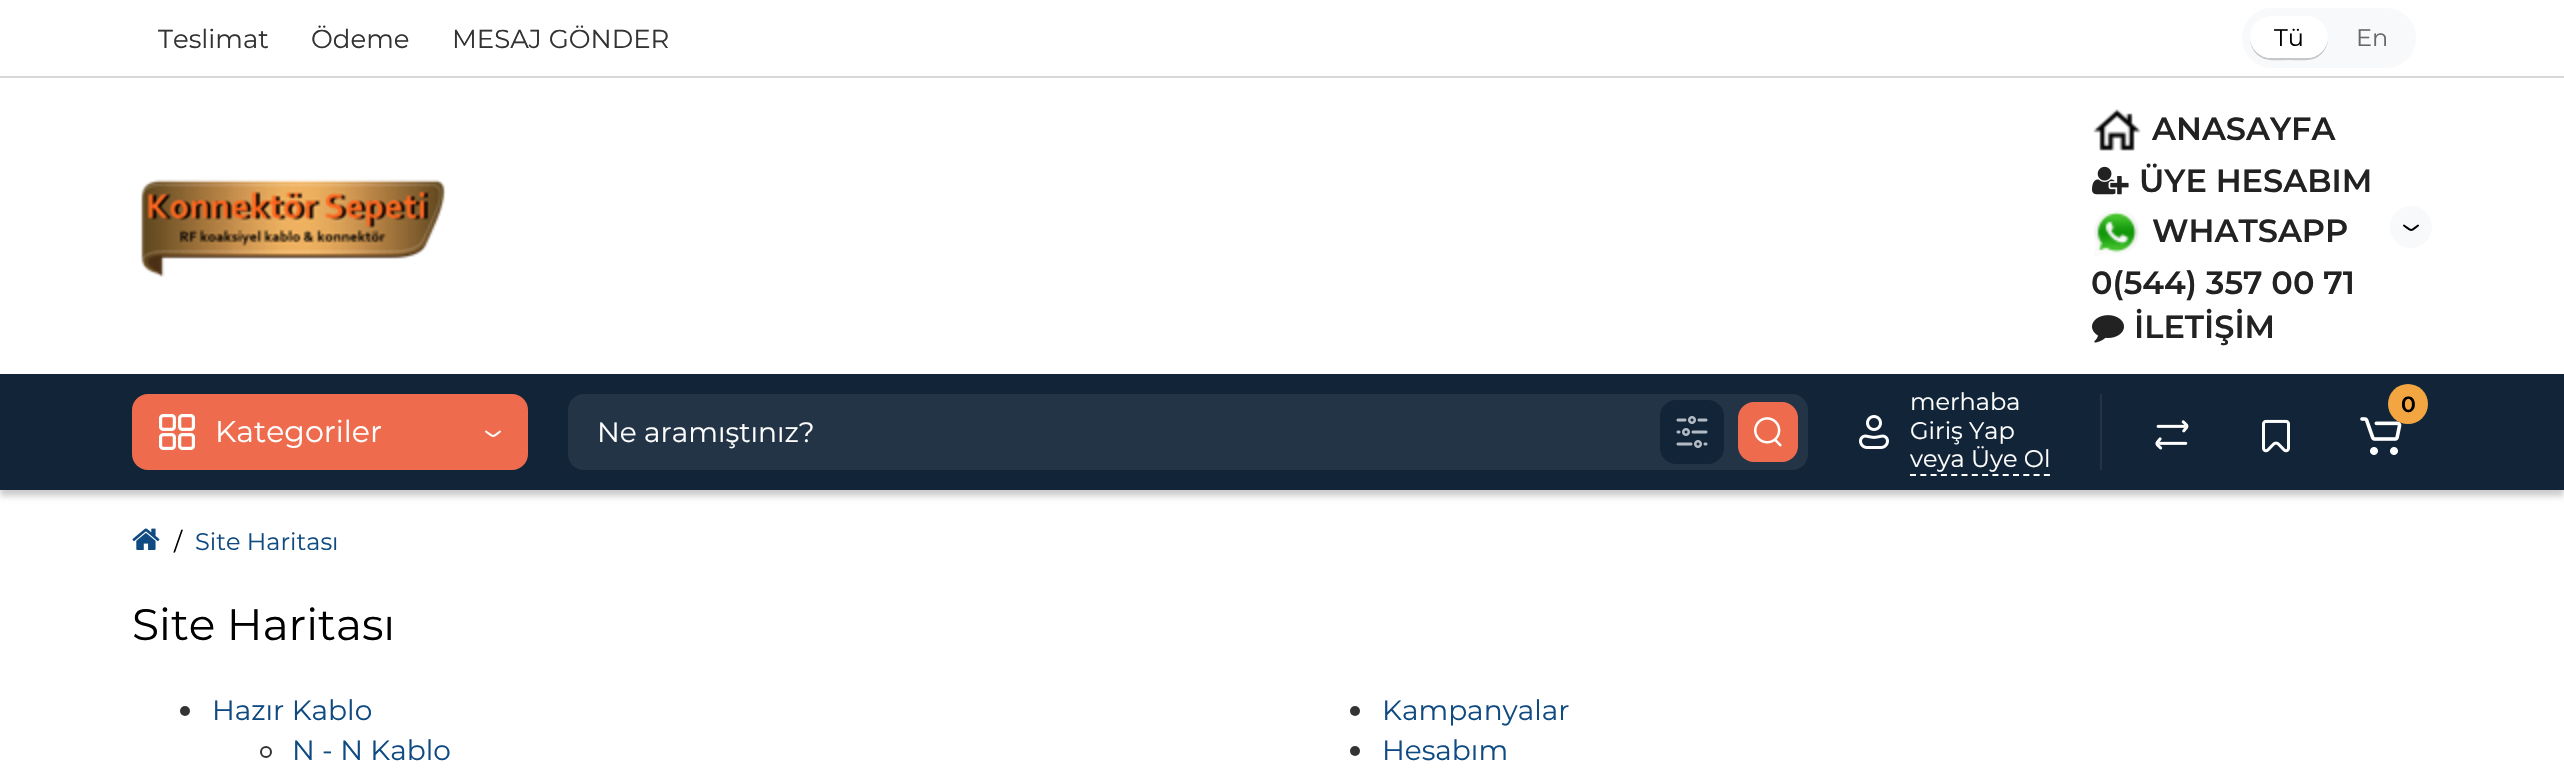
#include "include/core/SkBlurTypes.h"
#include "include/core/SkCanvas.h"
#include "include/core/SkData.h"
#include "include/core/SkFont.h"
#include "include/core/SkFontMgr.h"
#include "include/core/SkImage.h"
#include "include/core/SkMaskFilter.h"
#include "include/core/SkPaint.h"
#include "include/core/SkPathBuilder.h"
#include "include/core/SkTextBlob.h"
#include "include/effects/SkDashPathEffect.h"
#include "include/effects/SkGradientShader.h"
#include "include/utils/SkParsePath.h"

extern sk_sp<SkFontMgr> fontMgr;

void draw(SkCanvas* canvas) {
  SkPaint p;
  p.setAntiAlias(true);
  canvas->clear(SK_ColorWHITE);
  p.setColor(SkColorSetRGB(216, 216, 216));
  canvas->drawRect(SkRect::MakeLTRB(0, 76, 2564, 78), p);
  p.setColor(SkColorSetRGB(248, 249, 250));
  canvas->drawRoundRect(SkRect::MakeLTRB(2242, 8, 2416, 68), 30, 30, p);
  p.setColor(SkColorSetRGB(198, 199, 200));
  canvas->drawPath(SkPathBuilder().moveTo(2250, 38).cubicTo(2250, 42, 2251, 47, 2254, 51).cubicTo(2262, 63, 2277, 60, 2289, 60).cubicTo(2301, 60, 2316, 63, 2324, 51).cubicTo(2327, 47, 2328, 42, 2328, 38).cubicTo(2327, 49, 2318, 58, 2307, 58).lineTo(2271, 58).cubicTo(2260, 58, 2251, 49, 2250, 38).close().detach(), p);
  p.setColor(SK_ColorWHITE);
  canvas->drawRoundRect(SkRect::MakeLTRB(2250, 16, 2328, 58), 21, 21, p);
  canvas->drawImageRect(SkImages::DeferredFromEncodedData(SkData::MakeFromFileName("images/1.png")), SkRect::MakeLTRB(140, 179, 446, 277), SkSamplingOptions());
  canvas->drawImageRect(SkImages::DeferredFromEncodedData(SkData::MakeFromFileName("images/2.png")), SkRect::MakeLTRB(2093, 109, 2141, 151), SkSamplingOptions());
  canvas->drawImageRect(SkImages::DeferredFromEncodedData(SkData::MakeFromFileName("images/3.png")), SkRect::MakeLTRB(2092, 166, 2129, 195), SkSamplingOptions());
  canvas->drawImageRect(SkImages::DeferredFromEncodedData(SkData::MakeFromFileName("images/4.png")), SkRect::MakeLTRB(2094, 210, 2140, 256), SkSamplingOptions());
  p.setColor(SkColorSetRGB(248, 249, 250));
  canvas->drawCircle(2411, 227, 21, p);
  p.setStyle(SkPaint::kStroke_Style);
  p.setStrokeWidth(2);
  p.setStrokeCap(SkPaint::kRound_Cap);
  p.setColor(SK_ColorBLACK);
  canvas->drawPath(SkPathBuilder().moveTo(2418, 225.5f).cubicTo(2410, 231.5f, 2412.5f, 231.5f, 2404, 225.5f).detach(), p);
  canvas->drawImageRect(SkImages::DeferredFromEncodedData(SkData::MakeFromFileName("images/5.png")), SkRect::MakeLTRB(2092, 315, 2124, 343), SkSamplingOptions());
  p.setStyle(SkPaint::kFill_Style);
  p.setColor(SkColorSetARGB(51, 0, 0, 0));
  p.setMaskFilter(SkMaskFilter::MakeBlur(kNormal_SkBlurStyle, 3));
  canvas->drawRect(SkRect::MakeLTRB(0, 380, 2564, 496), p);
  p.setMaskFilter(nullptr);
  p.setColor(SkColorSetRGB(18, 37, 56));
  canvas->drawRect(SkRect::MakeLTRB(0, 374, 2564, 490), p);
  p.setColor(SkColorSetRGB(238, 108, 77));
  canvas->drawRoundRect(SkRect::MakeLTRB(132, 394, 528, 470), 16, 16, p);
  canvas->drawImageRect(SkImages::DeferredFromEncodedData(SkData::MakeFromFileName("images/6.png")), SkRect::MakeLTRB(159, 414, 195, 450), SkSamplingOptions());
  p.setStyle(SkPaint::kStroke_Style);
  p.setColor(SK_ColorWHITE);
  canvas->drawPath(SkPathBuilder().moveTo(500, 431.5f).cubicTo(492, 437.5f, 494.5f, 437.5f, 486, 431.5f).detach(), p);
  canvas->drawImageRect(SkImages::DeferredFromEncodedData(SkData::MakeFromFileName("images/7.png")), SkRect::MakeLTRB(1859, 415, 1889, 449), SkSamplingOptions());
  p.setStrokeCap(SkPaint::kButt_Cap);
  p.setPathEffect(SkDashPathEffect::Make({{6, 4.3f}}, 0));
  canvas->drawPath(SkPathBuilder().moveTo(1910, 475).lineTo(2050, 475).detach(), p);
  p.setPathEffect(nullptr);
  p.setStyle(SkPaint::kFill_Style);
  p.setColor(SkColorSetRGB(34, 52, 70));
  canvas->drawRect(SkRect::MakeLTRB(2100, 394, 2102, 470), p);
  canvas->drawImageRect(SkImages::DeferredFromEncodedData(SkData::MakeFromFileName("images/8.png")), SkRect::MakeLTRB(2360, 417, 2402, 455), SkSamplingOptions());
  p.setColor(SkColorSetRGB(242, 165, 65));
  canvas->drawCircle(2408, 404, 20, p);
  canvas->drawImageRect(SkImages::DeferredFromEncodedData(SkData::MakeFromFileName("images/9.png")), SkRect::MakeLTRB(2155, 420, 2189, 450), SkSamplingOptions());
  canvas->drawImageRect(SkImages::DeferredFromEncodedData(SkData::MakeFromFileName("images/10.png")), SkRect::MakeLTRB(2262, 419, 2290, 453), SkSamplingOptions());
  p.setColor(SkColorSetRGB(34, 52, 70));
  canvas->drawPath(SkPathBuilder().moveTo(584, 394).lineTo(1652, 394).lineTo(1652, 470).lineTo(584, 470).cubicTo(575, 470, 568, 463, 568, 454).lineTo(568, 410).cubicTo(568, 401, 575, 394, 584, 394).close().detach(), p);
  canvas->drawRect(SkRect::MakeLTRB(1652, 394, 1728, 470), p);
  p.setColor(SkColorSetRGB(18, 37, 56));
  canvas->drawRoundRect(SkRect::MakeLTRB(1660, 400, 1724, 464), 16, 16, p);
  canvas->drawImageRect(SkImages::DeferredFromEncodedData(SkData::MakeFromFileName("images/11.png")), SkRect::MakeLTRB(1676, 416, 1708, 448), SkSamplingOptions());
  p.setColor(SkColorSetRGB(34, 52, 70));
  canvas->drawPath(SkPathBuilder().moveTo(1728, 394).lineTo(1792, 394).cubicTo(1801, 394, 1808, 401, 1808, 410).lineTo(1808, 454).cubicTo(1808, 463, 1801, 470, 1792, 470).lineTo(1728, 470).close().detach(), p);
  p.setColor(SkColorSetRGB(238, 108, 77));
  canvas->drawRoundRect(SkRect::MakeLTRB(1738, 402, 1798, 462), 16, 16, p);
  canvas->drawImageRect(SkImages::DeferredFromEncodedData(SkData::MakeFromFileName("images/12.png")), SkRect::MakeLTRB(1754, 417, 1782, 447), SkSamplingOptions());
  canvas->drawImageRect(SkImages::DeferredFromEncodedData(SkData::MakeFromFileName("images/13.png")), SkRect::MakeLTRB(132, 528, 160, 550), SkSamplingOptions());
  p.setColor(SkColorSetRGB(51, 51, 51));
  canvas->drawCircle(185, 711, 5, p);
  p.setStyle(SkPaint::kStroke_Style);
  canvas->drawCircle(266, 752, 5, p);
  p.setStyle(SkPaint::kFill_Style);
  canvas->drawCircle(1355, 711, 5, p);
  canvas->drawCircle(1355, 751, 5, p);
  SkFont font1(fontMgr->matchFamilyStyle("Montserrat", SkFontStyle::Normal()), 26);
  font1.setSubpixel(true);
  canvas->drawString("Teslimat", 158, 48, font1, p);
  canvas->drawString("Ödeme", 311, 48, font1, p);
  canvas->drawString("MESAJ GÖNDER", 452, 48, font1, p);
  SkFont font2(fontMgr->matchFamilyStyle("Montserrat", SkFontStyle::Normal()), 24);
  font2.setSubpixel(true);
  p.setColor(SK_ColorBLACK);
  canvas->drawString("Tü", 2274, 46, font2, p);
  p.setColor(SkColorSetRGB(104, 104, 104));
  canvas->drawString("En", 2356, 46, font2, p);
  SkFont font3(fontMgr->matchFamilyStyle("Montserrat", SkFontStyle(600, SkFontStyle::kNormal_Width, SkFontStyle::kUpright_Slant)), 32);
  font3.setSubpixel(true);
  p.setColor(SkColorSetRGB(34, 34, 34));
  canvas->drawString("ANASAYFA", 2152, 140, font3, p);
  canvas->drawString("ÜYE HESABIM", 2139, 192, font3, p);
  canvas->drawString("WHATSAPP", 2152, 242, font3, p);
  canvas->drawString("0(544) 357 00 71", 2091, 294, font3, p);
  canvas->drawString("İLETİŞİM", 2134, 338, font3, p);
  SkFont font4(fontMgr->matchFamilyStyle("Montserrat", SkFontStyle::Normal()), 30);
  font4.setSubpixel(true);
  p.setColor(SK_ColorWHITE);
  canvas->drawString("Kategoriler", 215, 442, font4, p);
  canvas->drawString("merhaba", 1910, 410, font2, p);
  canvas->drawString("Giriş Yap", 1910, 439, font2, p);
  canvas->drawString("veya Üye Ol", 1910, 467, font2, p);
  SkFont font5(fontMgr->matchFamilyStyle("Montserrat", SkFontStyle(600, SkFontStyle::kNormal_Width, SkFontStyle::kUpright_Slant)), 22);
  font5.setSubpixel(true);
  p.setColor(SK_ColorBLACK);
  canvas->drawString("0", 2401, 412, font5, p);
  SkFont font6(fontMgr->matchFamilyStyle("Montserrat", SkFontStyle::Normal()), 28);
  font6.setSubpixel(true);
  p.setColor(SK_ColorWHITE);
  canvas->drawString("Ne aramıştınız?", 597, 442, font6, p);
  p.setColor(SK_ColorBLACK);
  canvas->drawString("/", 174, 550, font2, p);
  p.setColor(SkColorSetRGB(15, 75, 130));
  canvas->drawString("Site Haritası", 195, 550, font2, p);
  SkFont font7(fontMgr->matchFamilyStyle("Montserrat", SkFontStyle::Normal()), 44);
  font7.setSubpixel(true);
  p.setColor(SK_ColorBLACK);
  canvas->drawString("Site Haritası", 132, 640, font7, p);
  p.setColor(SkColorSetRGB(15, 75, 130));
  canvas->drawString("Hazır Kablo", 212, 720, font6, p);
  canvas->drawString("N - N Kablo", 292, 760, font6, p);
  canvas->drawString("Kampanyalar", 1382, 720, font6, p);
  canvas->drawString("Hesabım", 1382, 760, font6, p);
}
